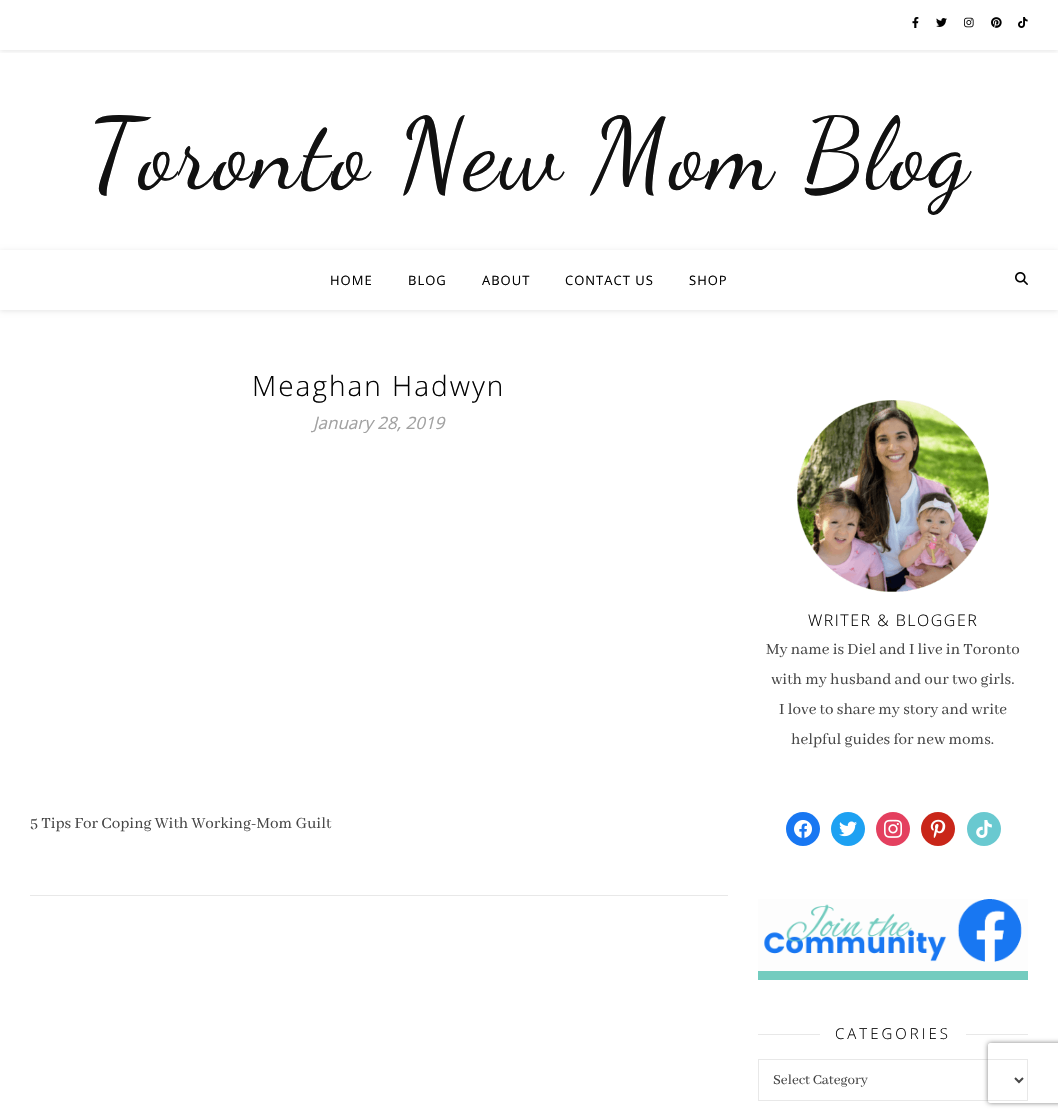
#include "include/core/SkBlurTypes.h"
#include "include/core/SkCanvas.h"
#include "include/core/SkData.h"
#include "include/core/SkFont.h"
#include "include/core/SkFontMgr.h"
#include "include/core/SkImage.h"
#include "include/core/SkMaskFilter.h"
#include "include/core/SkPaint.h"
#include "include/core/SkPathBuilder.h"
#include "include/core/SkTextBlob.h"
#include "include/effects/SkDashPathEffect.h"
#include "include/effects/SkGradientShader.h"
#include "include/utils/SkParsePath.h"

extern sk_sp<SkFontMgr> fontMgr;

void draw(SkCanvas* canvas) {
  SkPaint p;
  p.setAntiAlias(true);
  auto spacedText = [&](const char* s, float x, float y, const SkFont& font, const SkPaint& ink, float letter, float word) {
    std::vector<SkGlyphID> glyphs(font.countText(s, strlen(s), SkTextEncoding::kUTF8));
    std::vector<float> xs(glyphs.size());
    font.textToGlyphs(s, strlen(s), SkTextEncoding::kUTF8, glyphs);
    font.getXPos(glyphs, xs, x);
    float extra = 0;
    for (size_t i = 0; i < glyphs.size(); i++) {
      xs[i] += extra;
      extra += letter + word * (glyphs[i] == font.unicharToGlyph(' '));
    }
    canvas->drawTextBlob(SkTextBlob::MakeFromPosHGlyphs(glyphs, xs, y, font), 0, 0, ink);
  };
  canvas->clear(SK_ColorWHITE);
  canvas->save();
  canvas->clipRect(SkRect::MakeLTRB(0, 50, 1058, 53));
  p.setColor(SkColorSetARGB(26, 0, 0, 0));
  p.setMaskFilter(SkMaskFilter::MakeBlur(kNormal_SkBlurStyle, 2.5f));
  canvas->drawRect(SkRect::MakeLTRB(0, 1, 1058, 51), p);
  p.setMaskFilter(nullptr);
  canvas->restore();
  canvas->drawImageRect(SkImages::DeferredFromEncodedData(SkData::MakeFromFileName("images/1.png")), SkRect::MakeLTRB(912, 17, 919, 28), SkSamplingOptions());
  canvas->drawImageRect(SkImages::DeferredFromEncodedData(SkData::MakeFromFileName("images/2.png")), SkRect::MakeLTRB(936, 18, 947, 27), SkSamplingOptions());
  canvas->drawImageRect(SkImages::DeferredFromEncodedData(SkData::MakeFromFileName("images/3.png")), SkRect::MakeLTRB(964, 17, 974, 28), SkSamplingOptions());
  canvas->drawImageRect(SkImages::DeferredFromEncodedData(SkData::MakeFromFileName("images/4.png")), SkRect::MakeLTRB(991, 17, 1002, 28), SkSamplingOptions());
  canvas->drawImageRect(SkImages::DeferredFromEncodedData(SkData::MakeFromFileName("images/5.png")), SkRect::MakeLTRB(1018, 17, 1028, 28), SkSamplingOptions());
  canvas->save();
  canvas->clipPath(SkPathBuilder(SkPathFillType::kEvenOdd).moveTo(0, 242).lineTo(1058, 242).lineTo(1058, 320).lineTo(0, 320).close().moveTo(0, 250).lineTo(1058, 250).lineTo(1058, 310).lineTo(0, 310).close().detach(), true);
  p.setMaskFilter(SkMaskFilter::MakeBlur(kNormal_SkBlurStyle, 2.5f));
  canvas->drawRect(SkRect::MakeLTRB(0, 251, 1058, 311), p);
  p.setMaskFilter(nullptr);
  canvas->restore();
  canvas->drawImageRect(SkImages::DeferredFromEncodedData(SkData::MakeFromFileName("images/6.png")), SkRect::MakeLTRB(1015, 272, 1028, 285), SkSamplingOptions());
  p.setColor(SkColorSetRGB(232, 232, 232));
  canvas->drawRect(SkRect::MakeLTRB(30, 895, 728, 896), p);
  canvas->drawImageRect(SkImages::DeferredFromEncodedData(SkData::MakeFromFileName("images/7.png")), SkRect::MakeLTRB(797, 400, 989, 592), SkSamplingOptions());
  p.setColor(SkColorSetRGB(24, 119, 242));
  canvas->drawCircle(803, 829, 17, p);
  canvas->drawImageRect(SkImages::DeferredFromEncodedData(SkData::MakeFromFileName("images/8.png")), SkRect::MakeLTRB(794, 820, 812, 838), SkSamplingOptions());
  p.setColor(SkColorSetRGB(29, 161, 242));
  canvas->drawCircle(848, 829, 17, p);
  canvas->drawImageRect(SkImages::DeferredFromEncodedData(SkData::MakeFromFileName("images/9.png")), SkRect::MakeLTRB(839, 821, 857, 837), SkSamplingOptions());
  p.setColor(SkColorSetRGB(228, 64, 95));
  canvas->drawCircle(893, 829, 17, p);
  canvas->drawImageRect(SkImages::DeferredFromEncodedData(SkData::MakeFromFileName("images/10.png")), SkRect::MakeLTRB(884, 819, 902, 838), SkSamplingOptions());
  p.setColor(SkColorSetRGB(201, 38, 25));
  canvas->drawCircle(938, 829, 17, p);
  canvas->drawImageRect(SkImages::DeferredFromEncodedData(SkData::MakeFromFileName("images/11.png")), SkRect::MakeLTRB(930, 819, 946, 838), SkSamplingOptions());
  p.setColor(SkColorSetRGB(105, 201, 208));
  canvas->drawCircle(984, 829, 17, p);
  canvas->drawImageRect(SkImages::DeferredFromEncodedData(SkData::MakeFromFileName("images/12.png")), SkRect::MakeLTRB(976, 820, 992, 838), SkSamplingOptions());
  canvas->drawImageRect(SkImages::DeferredFromEncodedData(SkData::MakeFromFileName("images/13.png")), SkRect::MakeLTRB(758, 899, 1028, 980), SkSamplingOptions());
  p.setColor(SkColorSetRGB(232, 232, 232));
  canvas->drawRect(SkRect::MakeLTRB(758, 1034, 820, 1035), p);
  canvas->drawRect(SkRect::MakeLTRB(966, 1034, 1028, 1035), p);
  p.setStyle(SkPaint::kStroke_Style);
  p.setStrokeWidth(1);
  canvas->drawRect(SkRect::MakeLTRB(758.5f, 1059.5f, 1027.5f, 1100.5f), p);
  p.setStrokeWidth(2);
  p.setColor(SkColorSetRGB(70, 70, 70));
  canvas->drawPath(SkPathBuilder().moveTo(1015, 1078).lineTo(1019, 1082).lineTo(1023, 1078).detach(), p);
  canvas->save();
  canvas->clipPath(SkPathBuilder(SkPathFillType::kEvenOdd).moveTo(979, 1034).lineTo(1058, 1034).lineTo(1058, 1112).lineTo(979, 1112).close().moveTo(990, 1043).lineTo(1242, 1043).cubicTo(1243, 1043, 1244, 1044, 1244, 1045).lineTo(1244, 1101).cubicTo(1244, 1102, 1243, 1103, 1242, 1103).lineTo(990, 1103).cubicTo(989, 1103, 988, 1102, 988, 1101).lineTo(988, 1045).cubicTo(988, 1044, 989, 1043, 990, 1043).close().detach(), true);
  p.setStyle(SkPaint::kFill_Style);
  p.setColor(SkColorSetRGB(128, 128, 128));
  p.setMaskFilter(SkMaskFilter::MakeBlur(kNormal_SkBlurStyle, 2.5f));
  canvas->drawRoundRect(SkRect::MakeLTRB(988, 1043, 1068, 1103), 2, 2, p);
  p.setMaskFilter(nullptr);
  canvas->restore();
  SkFont font1(fontMgr->matchFamilyStyle("Dancing Script", SkFontStyle::Normal()), 100);
  font1.setSubpixel(true);
  p.setColor(SkColorSetRGB(17, 17, 17));
  spacedText("Toronto New Mom Blog", 88, 187, font1, p, 2, 0);
  SkFont font2(fontMgr->matchFamilyStyle("Open Sans", SkFontStyle::Normal()), 13);
  font2.setSubpixel(true);
  p.setColor(SkColorSetRGB(3, 3, 3));
  spacedText("HOME", 330, 285, font2, p, 1, 0);
  spacedText("BLOG", 408, 285, font2, p, 1, 0);
  spacedText("ABOUT", 482, 285, font2, p, 1, 0);
  spacedText("CONTACT US", 565, 285, font2, p, 1, 0);
  spacedText("SHOP", 689, 285, font2, p, 1, 0);
  SkFont font3(fontMgr->matchFamilyStyle("Open Sans", SkFontStyle(300, SkFontStyle::kNormal_Width, SkFontStyle::kUpright_Slant)), 28);
  font3.setSubpixel(true);
  spacedText("Meaghan Hadwyn", 252, 396, font3, p, 2, 0);
  SkFont font4(fontMgr->matchFamilyStyle("Open Sans", SkFontStyle::Italic()), 17);
  font4.setSubpixel(true);
  p.setColor(SkColorSetRGB(161, 161, 161));
  canvas->drawString("January 28, 2019", 313, 429, font4, p);
  SkFont font5(fontMgr->matchFamilyStyle("Abhaya Libre", SkFontStyle::Normal()), 17);
  font5.setSubpixel(true);
  p.setColor(SkColorSetRGB(70, 70, 70));
  canvas->drawString("5 Tips For Coping With Working-Mom Guilt", 30, 828, font5, p);
  SkFont font6(fontMgr->matchFamilyStyle("Open Sans", SkFontStyle(300, SkFontStyle::kNormal_Width, SkFontStyle::kUpright_Slant)), 16);
  font6.setSubpixel(true);
  p.setColor(SkColorSetRGB(3, 3, 3));
  spacedText("WRITER & BLOGGER", 808, 626, font6, p, 1.5f, 0);
  p.setColor(SkColorSetRGB(70, 70, 70));
  canvas->drawString("My name is Diel and I live in Toronto", 766, 654, font5, p);
  canvas->drawString("with my husband and our two girls.", 771, 684, font5, p);
  canvas->drawString("I love to share my story and write", 779, 714, font5, p);
  canvas->drawString("helpful guides for new moms.", 791, 744, font5, p);
  SkFont font7(fontMgr->matchFamilyStyle("Open Sans", SkFontStyle(300, SkFontStyle::kNormal_Width, SkFontStyle::kUpright_Slant)), 15);
  font7.setSubpixel(true);
  p.setColor(SkColorSetRGB(3, 3, 3));
  spacedText("CATEGORIES", 835, 1039, font7, p, 3, 0);
  SkFont font8(fontMgr->matchFamilyStyle("Abhaya Libre", SkFontStyle::Normal()), 15);
  font8.setSubpixel(true);
  p.setColor(SkColorSetRGB(70, 70, 70));
  canvas->drawString("Select Category", 773, 1084, font8, p);
}
